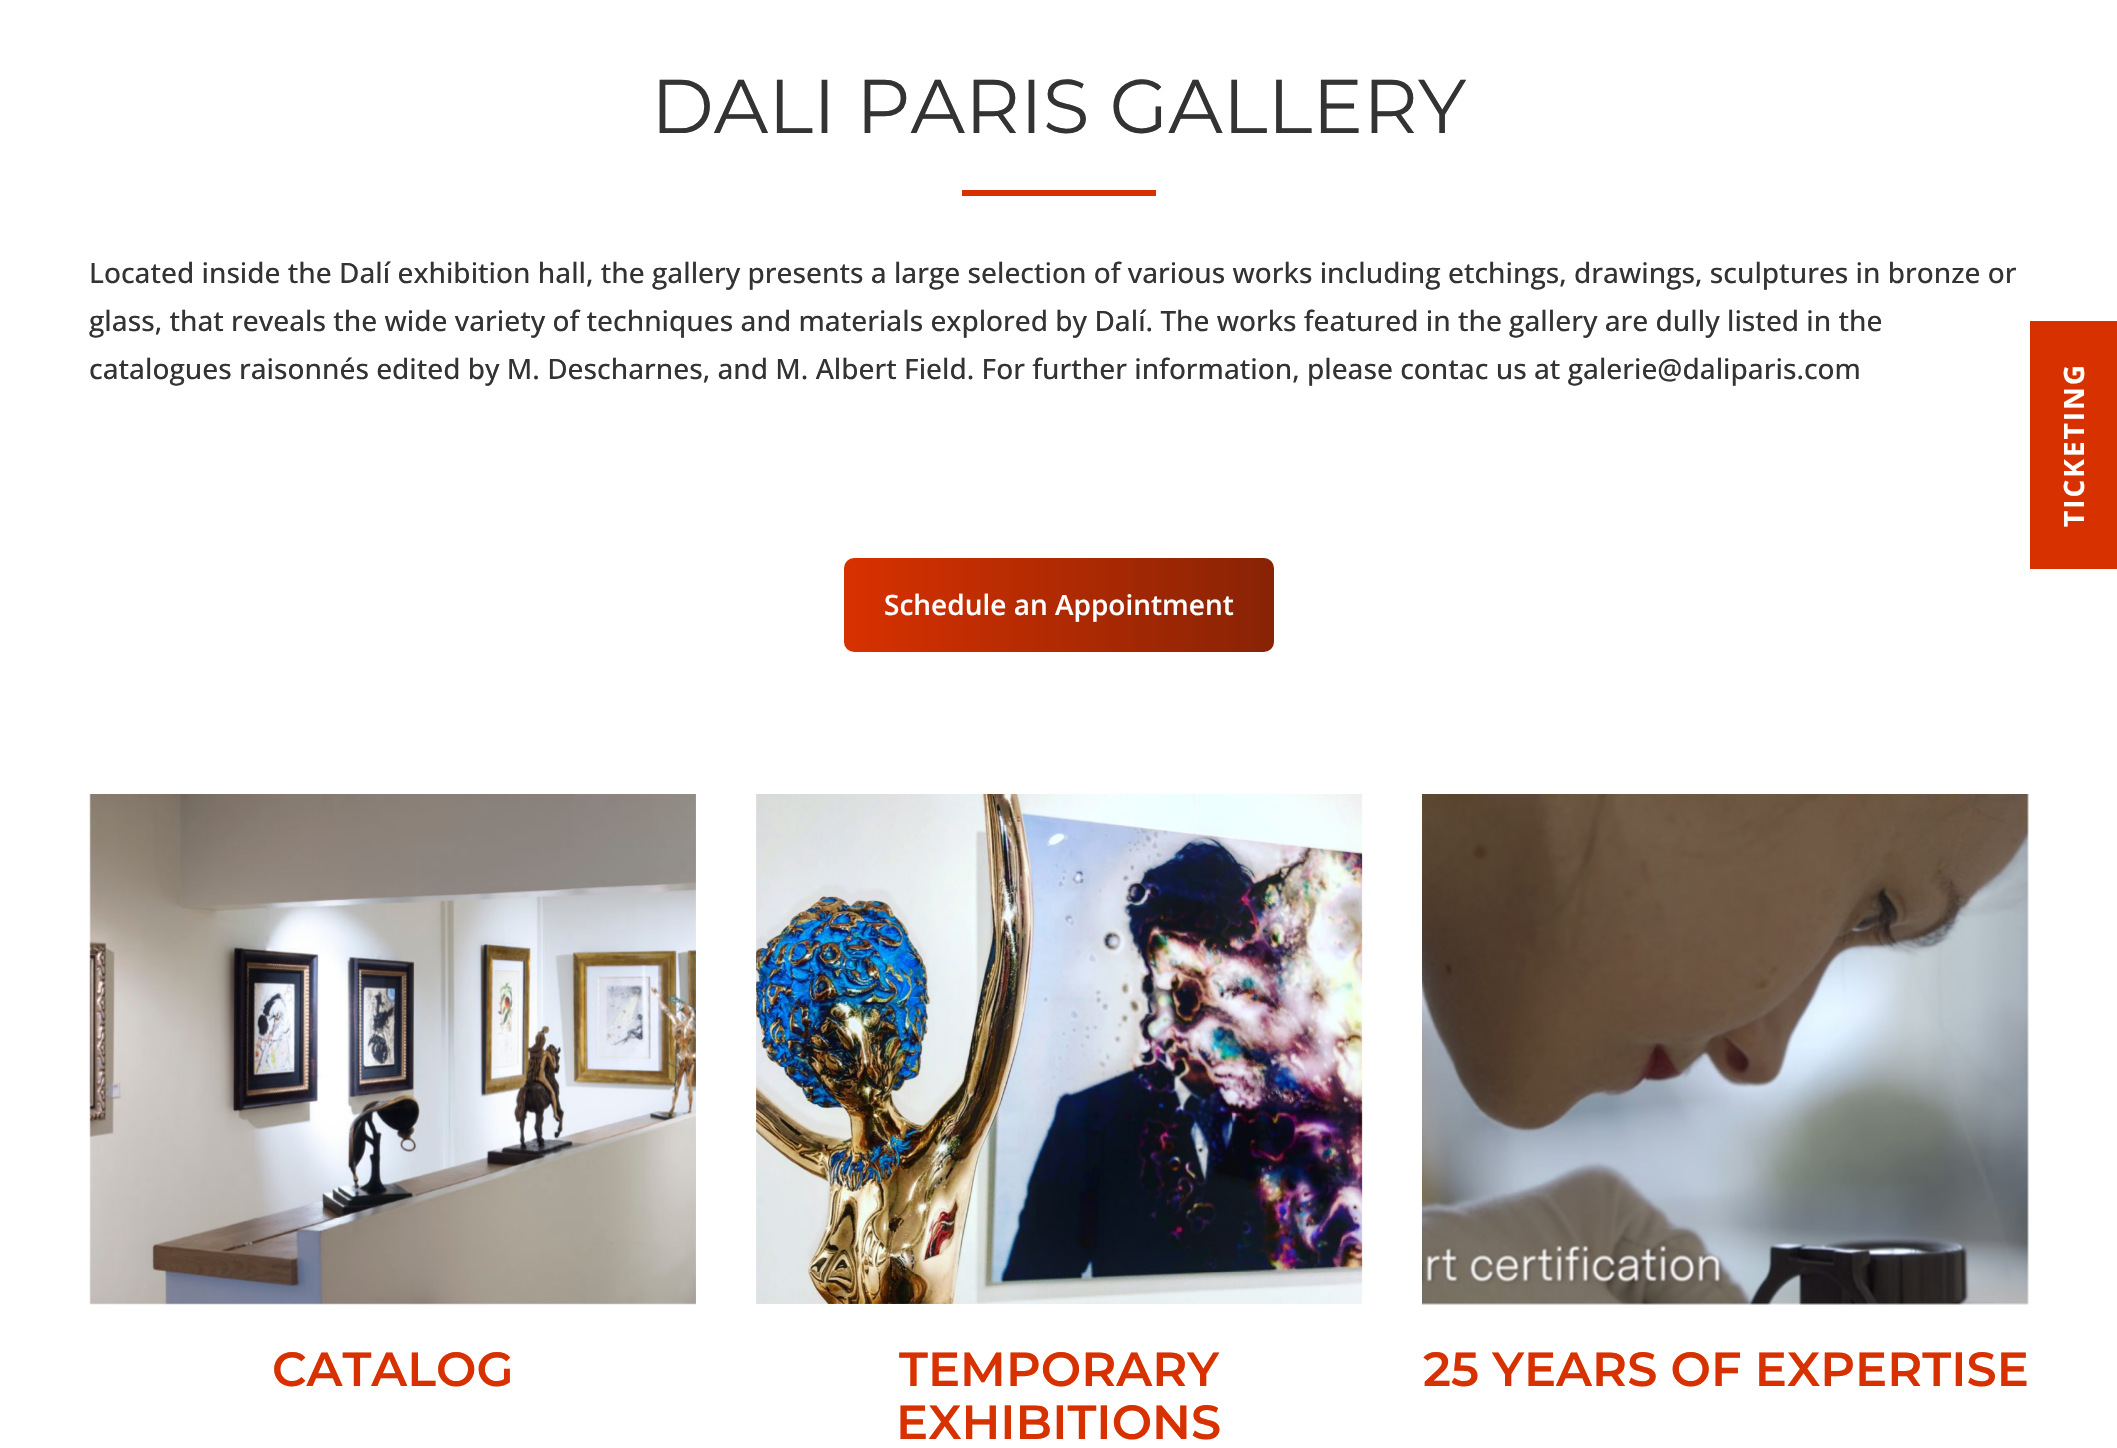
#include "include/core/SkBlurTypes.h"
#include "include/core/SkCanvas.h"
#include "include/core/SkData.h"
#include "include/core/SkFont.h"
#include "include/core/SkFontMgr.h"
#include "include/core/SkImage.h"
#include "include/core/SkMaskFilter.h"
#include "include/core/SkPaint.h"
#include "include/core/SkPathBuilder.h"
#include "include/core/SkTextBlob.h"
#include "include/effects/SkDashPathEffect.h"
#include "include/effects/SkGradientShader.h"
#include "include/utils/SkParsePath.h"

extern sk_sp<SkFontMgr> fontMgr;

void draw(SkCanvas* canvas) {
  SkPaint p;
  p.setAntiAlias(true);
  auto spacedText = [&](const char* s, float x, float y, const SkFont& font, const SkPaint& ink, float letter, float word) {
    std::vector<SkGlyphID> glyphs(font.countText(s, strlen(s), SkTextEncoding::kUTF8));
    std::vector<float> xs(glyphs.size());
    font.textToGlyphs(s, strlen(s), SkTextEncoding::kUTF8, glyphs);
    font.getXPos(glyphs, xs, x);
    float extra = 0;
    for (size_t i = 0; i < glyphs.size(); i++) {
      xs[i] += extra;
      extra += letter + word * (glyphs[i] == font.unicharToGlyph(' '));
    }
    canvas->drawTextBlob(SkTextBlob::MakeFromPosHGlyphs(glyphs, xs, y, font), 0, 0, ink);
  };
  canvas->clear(SK_ColorWHITE);
  p.setColor(SkColorSetRGB(216, 49, 0));
  canvas->drawRect(SkRect::MakeLTRB(962, 190, 1156, 196), p);
  {
    const SkColor colors[] = {SkColorSetRGB(216, 49, 0), SkColorSetRGB(136, 35, 5), SkColorSetRGB(216, 49, 0)};
    const float stops[] = {0, 0.5f, 1};
    const SkPoint ends[] = {{844, 605}, {1704, 605}};
    p.setShader(SkGradientShader::MakeLinear(ends, colors, stops, 3, SkTileMode::kClamp));
    p.setAlpha(255);
  }
  canvas->drawRoundRect(SkRect::MakeLTRB(844, 558, 1274, 652), 10, 10, p);
  canvas->drawImageRect(SkImages::DeferredFromEncodedData(SkData::MakeFromFileName("images/1.png")), SkRect::MakeLTRB(89, 794, 696, 1305), SkSamplingOptions());
  canvas->drawImageRect(SkImages::DeferredFromEncodedData(SkData::MakeFromFileName("images/2.png")), SkRect::MakeLTRB(756, 794, 1363, 1304), SkSamplingOptions());
  canvas->drawImageRect(SkImages::DeferredFromEncodedData(SkData::MakeFromFileName("images/3.png")), SkRect::MakeLTRB(1422, 794, 2029, 1305), SkSamplingOptions());
  p.setShader(nullptr);
  p.setColor(SkColorSetRGB(216, 49, 0));
  canvas->drawRect(SkRect::MakeLTRB(2030, 321, 2117, 569), p);
  SkFont font1(fontMgr->matchFamilyStyle("Montserrat", SkFontStyle::Normal()), 76);
  font1.setSubpixel(true);
  p.setColor(SkColorSetRGB(51, 51, 51));
  canvas->drawString("DALI PARIS GALLERY", 651, 133, font1, p);
  SkFont font2(fontMgr->matchFamilyStyle("Open Sans", SkFontStyle(500, SkFontStyle::kNormal_Width, SkFontStyle::kUpright_Slant)), 28);
  font2.setSubpixel(true);
  canvas->drawString("Located inside the Dalí exhibition hall, the gallery presents a large selection of various works including etchings, drawings, sculptures in bronze or", 89, 283, font2, p);
  canvas->drawString("glass, that reveals the wide variety of techniques and materials explored by Dalí. The works featured in the gallery are dully listed in the", 89, 331, font2, p);
  canvas->drawString("catalogues raisonnés edited by M. Descharnes, and M. Albert Field. For further information, please contac us at galerie@daliparis.com", 89, 379, font2, p);
  SkFont font3(fontMgr->matchFamilyStyle("Open Sans", SkFontStyle(600, SkFontStyle::kNormal_Width, SkFontStyle::kUpright_Slant)), 28);
  font3.setSubpixel(true);
  p.setColor(SK_ColorWHITE);
  canvas->drawString("Schedule an Appointment", 884, 615, font3, p);
  SkFont font4(fontMgr->matchFamilyStyle("Montserrat", SkFontStyle(600, SkFontStyle::kNormal_Width, SkFontStyle::kUpright_Slant)), 48);
  font4.setSubpixel(true);
  p.setColor(SkColorSetRGB(216, 49, 0));
  canvas->drawString("CATALOG", 272, 1386, font4, p);
  canvas->drawString("TEMPORARY", 899, 1386, font4, p);
  canvas->drawString("EXHIBITIONS", 896, 1439, font4, p);
  canvas->drawString("25 YEARS OF EXPERTISE", 1423, 1386, font4, p);
  SkFont font5(fontMgr->matchFamilyStyle("Open Sans", SkFontStyle::Bold()), 28);
  font5.setSubpixel(true);
  p.setColor(SK_ColorWHITE);
  canvas->save();
  canvas->rotate(-90, 2084, 527);
  spacedText("TICKETING", 2084, 527, font5, p, 2, 0);
  canvas->restore();
}
